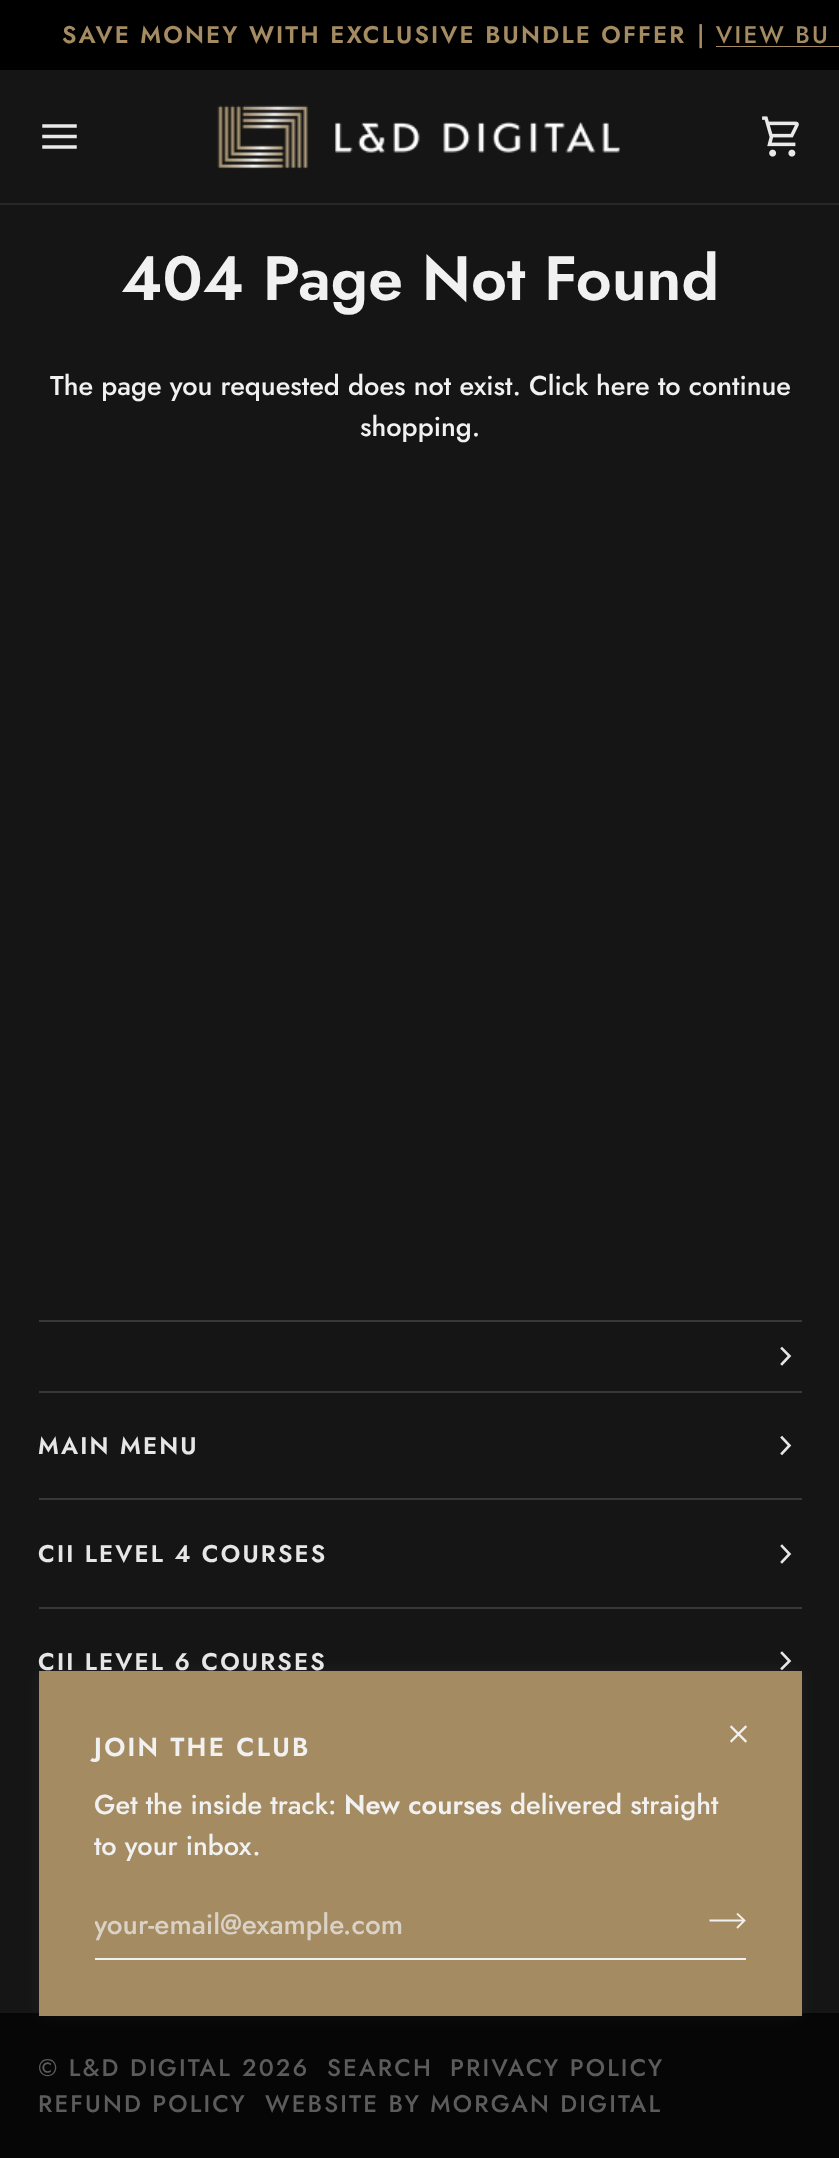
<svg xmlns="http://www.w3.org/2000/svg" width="839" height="2158">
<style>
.a{font:600 24.05px Jost;letter-spacing:2.15px;fill:#a48b62}
.b{font:500 24.05px Jost;letter-spacing:2.15px;fill:#a48b62}
.c{font:600 62.5px Jost;fill:#f1f1f1}
.d{font:500 27.2px Jost;fill:#f1f1f1}
.e{font:600 24.05px Jost;letter-spacing:2.15px;fill:#e6e6e6}
.f{font:600 26px Jost;letter-spacing:2.3px;fill:#f1f1f1}
.g{font:600 27.2px Jost;fill:#f1f1f1}
.h{font:500 28px Jost;fill:#dad2c6}
.i{font:500 24.05px Jost;letter-spacing:2.15px;fill:#5c5c5c}
</style>
<defs>
<clipPath id="clip1"><path d="M95 1904h575v40H95z"/></clipPath>
</defs>
<rect width="100%" height="100%" fill="#151515"/>
<path fill="#000" d="M0 0h839v70H0z"/>
<path fill="#a48b62" d="M716 46h123v1H716z"/>
<path fill="#282828" d="M0 203h839v2H0z"/>
<path fill="none" stroke="#e9e9e9" stroke-width="3.5" stroke-linecap="square" d="M75 126h-31m31 10.5h-31m31 10.5h-31"/>
<image href="1.png" x="217" y="105" width="404" height="64"/>
<image href="2.png" x="762" y="116" width="37" height="41"/>
<path fill="#383838" d="M39 1320h763v2H39z"/>
<path fill="#383838" d="M39 1391h763v2H39z"/>
<path fill="none" stroke="#e6e6e6" stroke-width="2.6" stroke-linecap="square" d="M782 1364l7.5-8l-7.5-7.5"/>
<path fill="#383838" d="M39 1498h763v2H39z"/>
<path fill="none" stroke="#e6e6e6" stroke-width="2.6" stroke-linecap="square" d="M782 1453.5l7.5-8l-7.5-8"/>
<path fill="#383838" d="M39 1607h763v2H39z"/>
<path fill="none" stroke="#e6e6e6" stroke-width="2.6" stroke-linecap="square" d="M782 1562l7.5-8l-7.5-8"/>
<path fill="none" stroke="#e6e6e6" stroke-width="2.6" stroke-linecap="square" d="M782 1668.5l7.5-7.5l-7.5-8"/>
<path fill="#060606" d="M0 2013h839v145H0z"/>
<path fill="#f1f1f10d" filter="blur(9px)" d="M39 1671h763v345H39z"/>
<path fill="#a48b62" d="M39 1671h763v345H39z"/>
<path fill="none" stroke="#f1f1f1" stroke-width="2.3" stroke-linecap="square" d="M745.5 1727l-14 14m0-14l14 14"/>
<path fill="#f1f1f1" d="M95 1958h651v2H95z"/>
<path fill="none" stroke="#f1f1f1" stroke-width="1.8" d="M737 1913.5l7.5 7l-7.5 7.5m-27.5-7.5h35"/>
<text class="a" x="62" y="43">SAVE MONEY WITH EXCLUSIVE BUNDLE OFFER</text>
<text class="b" x="697" y="43">| VIEW BU</text>
<text class="c" x="121" y="300">404 Page Not Found</text>
<text class="d" x="50" y="395">The page you requested does not exist. Click</text>
<text class="d" x="596" y="395">here to continue</text>
<text class="d" x="360" y="436">shopping.</text>
<text class="e" x="38" y="1454">MAIN MENU</text>
<text class="e" x="38" y="1562">CII LEVEL 4 COURSES</text>
<text class="e" x="38" y="1670">CII LEVEL 6 COURSES</text>
<text class="f" x="94" y="1756">JOIN THE CLUB</text>
<text class="d" x="94" y="1814">Get the inside track:</text>
<text class="g" x="344" y="1814">New courses</text>
<text class="d" x="510" y="1814">delivered straight</text>
<text class="d" x="94" y="1855">to your inbox.</text>
<g clip-path="url(#clip1)">
<text class="h" x="94" y="1934">your-email@example.com</text>
</g>
<text class="i" x="38" y="2076">© L&amp;D DIGITAL</text>
<text class="i" x="242" y="2076">2026</text>
<text class="i" x="327" y="2076">SEARCH</text>
<text class="i" x="450" y="2076">PRIVACY POLICY</text>
<text class="i" x="38" y="2112">REFUND POLICY</text>
<text class="i" x="265" y="2112">WEBSITE BY MORGAN DIGITAL</text>
</svg>
